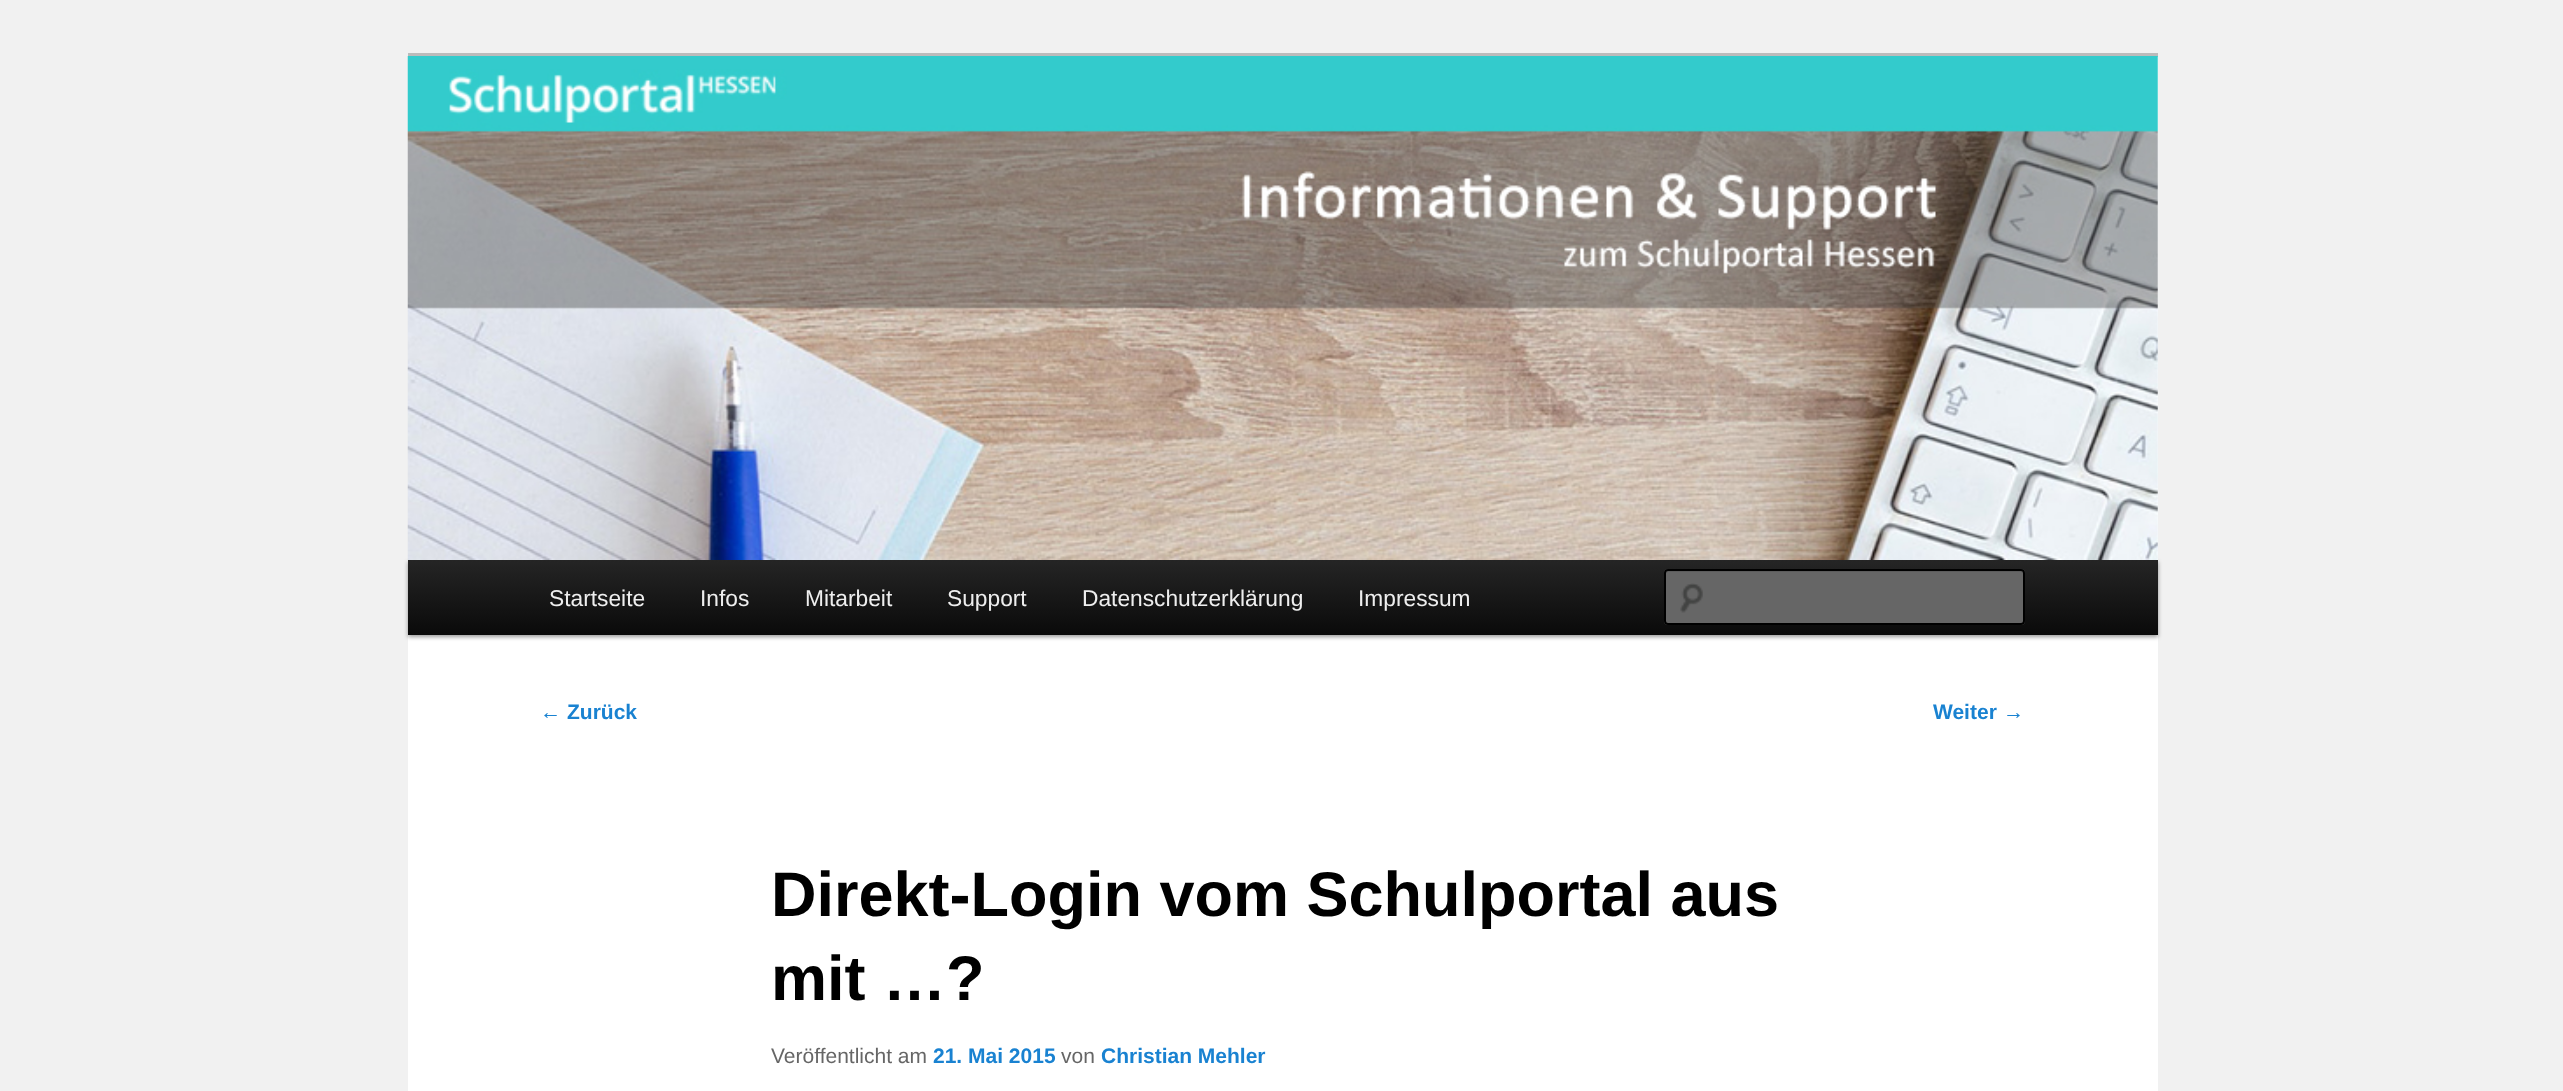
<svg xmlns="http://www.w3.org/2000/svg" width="2563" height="1091">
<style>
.a{font:22.75px Liberation Sans;fill:#eee}
.b{font:21px Liberation Sans;fill:#1982d1}
.c{font:bold 21px Liberation Sans;fill:#1982d1}
.d{font:bold 63px Liberation Sans;fill:#000}
.e{font:21px Liberation Sans;fill:#666}
</style>
<defs>
<linearGradient id="g1" gradientUnits="userSpaceOnUse" x1="1283" y1="560" x2="1283" y2="635"><stop offset="0" stop-color="#252525"/><stop offset="1" stop-color="#0a0a0a"/></linearGradient>
</defs>
<rect width="100%" height="100%" fill="#f1f1f1"/>
<path fill="#fff" d="M408 57h1750v1034H408z"/>
<path fill="#bbb" d="M408 53h1750v4H408z"/>
<path fill="#00000066" filter="blur(2px)" d="M408 562h1750v75H408z"/>
<image href="1.png" x="407" y="56" width="1751" height="504"/>
<path fill="url(#g1)" d="M408 560h1750v75H408z"/>
<rect fill="#666" x="1664" y="569" width="361" height="56" rx="4"/>
<image href="2.png" x="1680" y="583" width="23" height="30"/>
<path fill="#5c5c5c" d="M1668 572h353c1 0 2 1 2 2c0-1 0-3-2-3h-353c-2 0-2 2-2 3c0-1 1-2 2-2z"/>
<rect fill="none" stroke="#000" stroke-width="2" x="1665" y="570" width="359" height="54" rx="3"/>
<text class="a" x="549" y="606">Startseite</text>
<text class="a" x="700" y="606">Infos</text>
<text class="a" x="805" y="606">Mitarbeit</text>
<text class="a" x="947" y="606">Support</text>
<text class="a" x="1082" y="606">Datenschutzerklärung</text>
<text class="a" x="1358" y="606">Impressum</text>
<text class="b" x="540" y="719">←</text>
<text class="c" x="567" y="719">Zurück</text>
<text class="c" x="1933" y="719">Weiter</text>
<text class="b" x="2003" y="719">→</text>
<text class="d" x="771" y="916">Direkt-Login vom Schulportal aus</text>
<text class="d" x="771" y="1000">mit …?</text>
<text class="e" x="771" y="1063">Veröffentlicht am</text>
<text class="c" x="933" y="1063">21. Mai 2015</text>
<text class="e" x="1061" y="1063">von</text>
<text class="c" x="1101" y="1063">Christian Mehler</text>
</svg>
